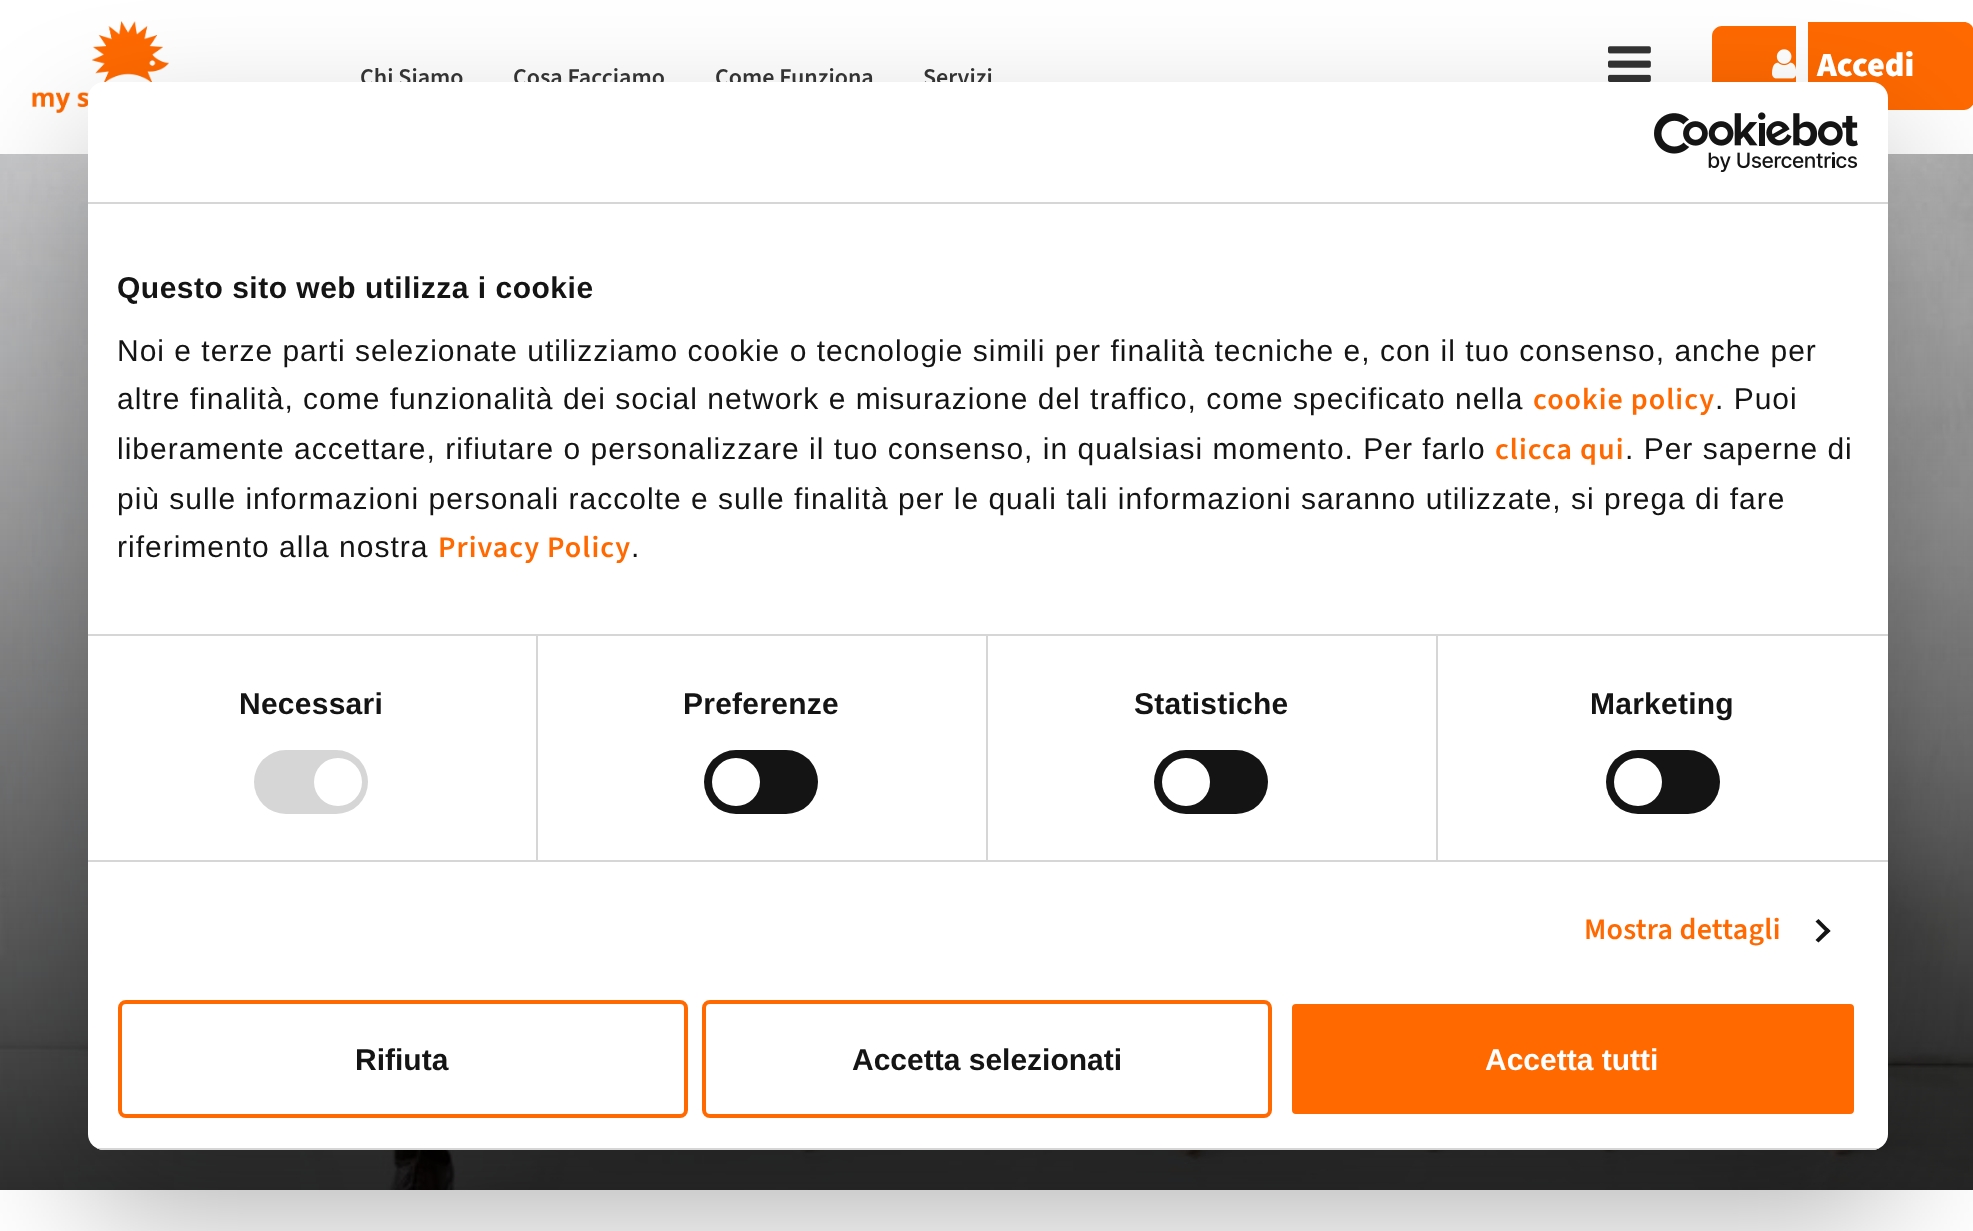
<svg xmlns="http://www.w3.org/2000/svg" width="1973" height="1231">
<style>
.a{font:600 24px 'Source Sans 3';fill:#333}
.b{font:900 34px 'Source Sans 3';fill:#fff}
.c{font:bold 30px Liberation Sans;letter-spacing:0.5px;fill:#141414}
.d{font:30px Liberation Sans;letter-spacing:1px;fill:#141414}
.e{font:600 30px 'Source Sans 3';letter-spacing:1px;fill:#ff6900}
.f{font:bold 30px Liberation Sans;letter-spacing:0.25px;fill:#141414}
.g{font:600 30px 'Source Sans 3';letter-spacing:0.25px;fill:#ff6900}
.h{font:bold 30px Liberation Sans;fill:#141414}
.i{font:bold 30px Liberation Sans;fill:#fff}
</style>
<defs>
<clipPath id="clip1"><rect x="88" y="82" width="1800" height="1068" rx="16"/></clipPath>
</defs>
<rect width="100%" height="100%" fill="#fff"/>
<image href="1.png" x="31" y="21" width="138" height="92"/>
<image href="2.png" x="1608" y="46" width="43" height="36"/>
<path fill="#ff6900" d="M1722 26h74v74h-74c-5.5 0-10-4.5-10-10v-54c0-5.5 4.5-10 10-10z"/>
<path fill="#ff6900" d="M1808 22h8v60H1808z"/>
<path fill="#ff6900" d="M1816 22h148c5.5 0 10 4.5 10 10v68c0 5.5-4.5 10-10 10h-148z"/>
<image href="3.png" x="1772" y="49" width="24" height="30"/>
<image href="4.png" x="0" y="154" width="1973" height="1036"/>
<rect fill="#0000004d" filter="blur(68px)" x="88" y="146" width="1800" height="1068" rx="16"/>
<text class="a" x="360" y="85">Chi Siamo</text>
<text class="a" x="513" y="85">Cosa Facciamo</text>
<text class="a" x="715" y="85">Come Funziona</text>
<text class="a" x="923" y="85">Servizi</text>
<text class="b" x="1817" y="76">Accedi</text>
<rect fill="#fff" x="88" y="82" width="1800" height="1068" rx="16"/>
<path fill="#d6d6d6" d="M88 202h1800v2H88z"/>
<image href="5.png" x="1654" y="112" width="204" height="60"/>
<path fill="#d6d6d6" d="M88 634h1800v2H88z"/>
<text class="c" x="117" y="298">Questo sito web utilizza i cookie</text>
<text class="d" x="117" y="361">Noi e terze parti selezionate utilizziamo cookie o tecnologie simili per finalità tecniche e, con il tuo consenso, anche per</text>
<text class="d" x="117" y="409">altre finalità, come funzionalità dei social network e misurazione del traffico, come specificato nella</text>
<text class="e" x="1533" y="409">cookie policy</text>
<text class="d" x="1715" y="409">. Puoi</text>
<text class="d" x="117" y="459">liberamente accettare, rifiutare o personalizzare il tuo consenso, in qualsiasi momento. Per farlo</text>
<text class="e" x="1495" y="459">clicca qui</text>
<text class="d" x="1625" y="459">. Per saperne di</text>
<text class="d" x="117" y="509">più sulle informazioni personali raccolte e sulle finalità per le quali tali informazioni saranno utilizzate, si prega di fare</text>
<text class="d" x="117" y="557">riferimento alla nostra</text>
<text class="e" x="438" y="557">Privacy Policy</text>
<text class="d" x="631" y="557">.</text>
<path fill="#d6d6d6" d="M88 860h1800v2H88z"/>
<path fill="#d6d6d6" d="M536 636h2v224H536z"/>
<text class="f" x="239" y="714">Necessari</text>
<rect fill="#d6d6d6" x="254" y="750" width="114" height="64" rx="32"/>
<circle fill="#fff" cx="338" cy="782" r="24"/>
<path fill="#d6d6d6" d="M986 636h2v224H986z"/>
<text class="f" x="683" y="714">Preferenze</text>
<rect fill="#141414" x="704" y="750" width="114" height="64" rx="32"/>
<circle fill="#fff" cx="736" cy="782" r="24"/>
<path fill="#d6d6d6" d="M1436 636h2v224H1436z"/>
<text class="f" x="1134" y="714">Statistiche</text>
<rect fill="#141414" x="1154" y="750" width="114" height="64" rx="32"/>
<circle fill="#fff" cx="1186" cy="782" r="24"/>
<text class="f" x="1590" y="714">Marketing</text>
<rect fill="#141414" x="1606" y="750" width="114" height="64" rx="32"/>
<circle fill="#fff" cx="1638" cy="782" r="24"/>
<text class="g" x="1584" y="939">Mostra dettagli</text>
<path fill="#141414" d="M1818.5 919l12 12l-3 2.5l-12-12z"/>
<path fill="#141414" d="M1827.5 928l3 3l-12 11.5l-3-2.5z"/>
<g clip-path="url(#clip1)">
<path fill="#d6d6d6" d="M88 1148h1800v2H88z"/>
</g>
<rect fill="none" stroke="#ff6900" stroke-width="4" x="120" y="1002" width="566" height="114" rx="6"/>
<text class="h" x="355" y="1070">Rifiuta</text>
<rect fill="none" stroke="#ff6900" stroke-width="4" x="704" y="1002" width="566" height="114" rx="6"/>
<text class="h" x="852" y="1070">Accetta selezionati</text>
<rect fill="#ff6900" stroke="#fff" stroke-width="4" x="1290" y="1002" width="566" height="114" rx="6"/>
<text class="i" x="1485" y="1070">Accetta tutti</text>
</svg>
